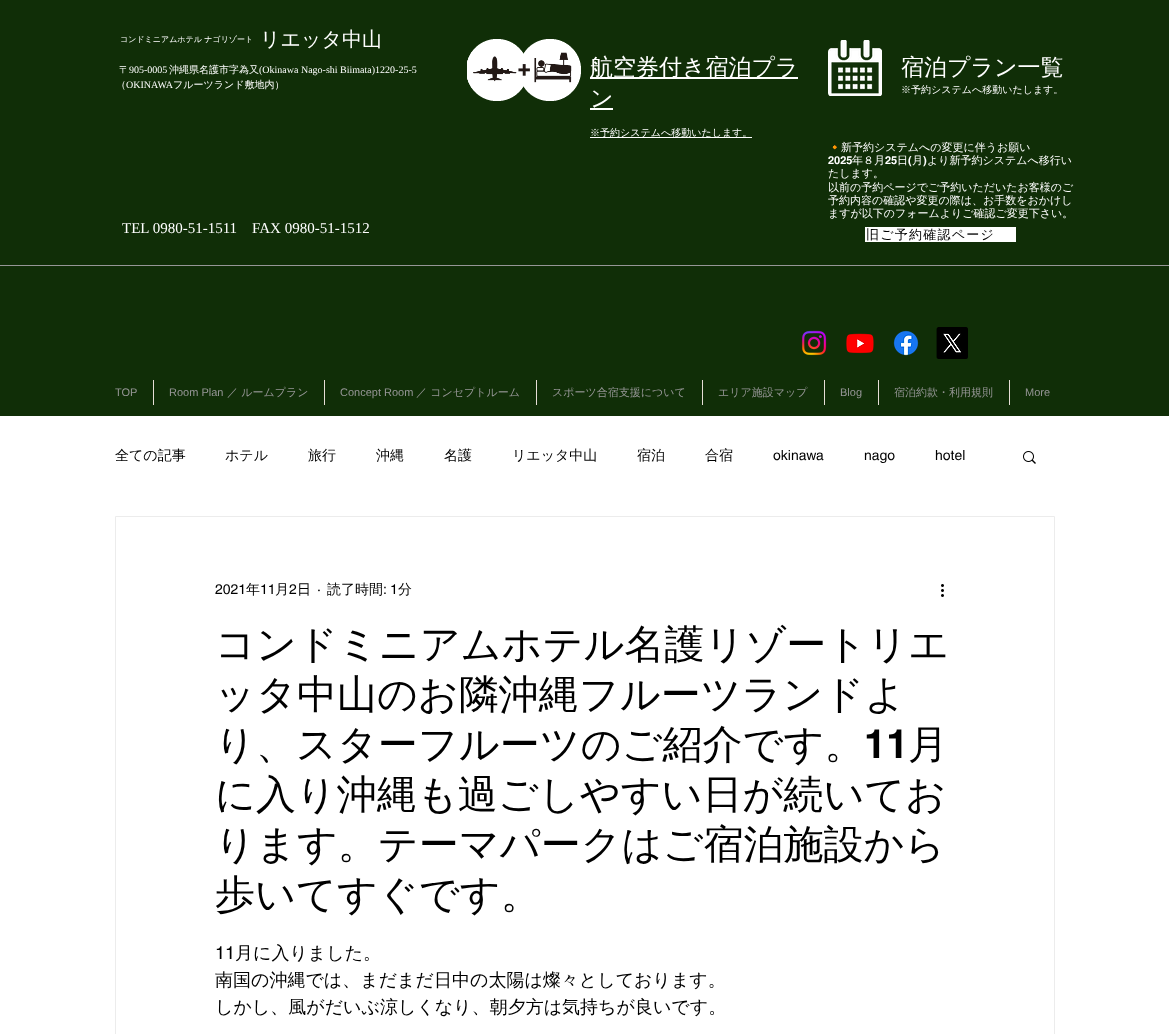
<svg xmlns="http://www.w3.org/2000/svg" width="1169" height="1034">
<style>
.a{font:500 8px WenQuanYi Zen Hei;fill:#fff}
.b{font:500 20px WenQuanYi Zen Hei;fill:#fff}
.c{font:500 10px WenQuanYi Zen Hei;fill:#fff}
.d{font:10px Liberation Serif;fill:#fff}
.e{font:500 23px WenQuanYi Zen Hei;fill:#fff}
.f{font:11px Noto Color Emoji;fill:#fff}
.g{font:500 11px WenQuanYi Zen Hei;fill:#fff}
.h{font:bold 11px helvetica;fill:#fff}
.i{font:15px Liberation Serif;fill:#fff}
.j{font:500 13px WenQuanYi Zen Hei;letter-spacing:1.25px;fill:#000}
.k{font:11px Liberation Sans;fill:#969696}
.l{font:500 11px WenQuanYi Zen Hei;fill:#969696}
.m{font:500 14px WenQuanYi Zen Hei;fill:#000}
.n{font:14px helvetica;fill:#000}
.o{font:500 40px WenQuanYi Zen Hei;fill:#000}
.p{font:bold 40px helvetica;fill:#000}
.q{font:18px helvetica;fill:#000}
.r{font:500 18px WenQuanYi Zen Hei;fill:#000}
</style>
<rect width="100%" height="100%" fill="#fff"/>
<path fill="#102e07" d="M0 0h1169v416H0z"/>
<image href="1.png" x="467" y="39" width="114" height="62"/>
<path fill="#fff" d="M590 77h208v2H590z"/>
<path fill="#fff" d="M590 108h23v2H590z"/>
<path fill="#fff" d="M590 137h162v1H590z"/>
<image href="2.png" x="828" y="40" width="54" height="56"/>
<path fill="#fff" d="M865 227h151v15H865z"/>
<path fill="#969696" d="M0 265h1169v1H0z"/>
<image href="3.png" x="801" y="330" width="26" height="26"/>
<image href="4.png" x="846" y="333" width="28" height="21"/>
<image href="5.png" x="893" y="330" width="26" height="26"/>
<image href="6.png" x="936" y="327" width="32" height="32"/>
<path fill="#e6ded6" d="M153 380h1v25H153z"/>
<path fill="#e6ded6" d="M324 380h1v25H324z"/>
<path fill="#e6ded6" d="M536 380h1v25H536z"/>
<path fill="#e6ded6" d="M702 380h1v25H702z"/>
<path fill="#e6ded6" d="M824 380h1v25H824z"/>
<path fill="#e6ded6" d="M878 380h1v25H878z"/>
<path fill="#e6ded6" d="M1009 380h1v25H1009z"/>
<image href="7.png" x="1023" y="451" width="13" height="13"/>
<path fill="none" stroke="#ececec" d="M115.5 516.5h939v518H115.5z"/>
<image href="8.png" x="941" y="584" width="3" height="13"/>
<text class="a" x="120" y="42">コンドミニアムホテル ナゴリゾート</text>
<text class="b" x="260" y="46">リエッタ中山</text>
<text class="c" x="119" y="73">〒</text>
<text class="d" x="129" y="73">905-0005</text>
<text class="c" x="169" y="73">沖縄県名護市字為又</text>
<text class="d" x="259" y="73">(Okinawa Nago-shi Biimata)1220-25-5</text>
<text class="c" x="116" y="88">（</text>
<text class="d" x="126" y="88">OKINAWA</text>
<text class="c" x="173" y="88">フルーツランド敷地内）</text>
<text class="e" x="590" y="75">航空券付き宿泊プラ</text>
<text class="e" x="590" y="106">ン</text>
<text class="c" x="590" y="136">※予約システムへ移動いたします。</text>
<text class="e" x="901" y="75">宿泊プラン一覧</text>
<text class="c" x="901" y="93">※予約システムへ移動いたします。</text>
<text class="f" x="828" y="151">🔸</text>
<text class="g" x="841" y="151">新予約システムへの変更に伴うお願い</text>
<text class="h" x="828" y="164">2025</text>
<text class="g" x="852" y="164">年８月</text>
<text class="h" x="885" y="164">25</text>
<text class="g" x="897" y="164">日</text>
<text class="h" x="908" y="164">(</text>
<text class="g" x="912" y="164">月</text>
<text class="h" x="923" y="164">)</text>
<text class="g" x="927" y="164">より新予約システムへ移行い</text>
<text class="g" x="828" y="177">たします。</text>
<text class="g" x="828" y="191">以前の予約ページでご予約いただいたお客様のご</text>
<text class="g" x="828" y="204">予約内容の確認や変更の際は、お手数をおかけし</text>
<text class="g" x="828" y="217">ますが以下のフォームよりご確認ご変更下さい。</text>
<text class="i" x="122" y="233">TEL 0980-51-1511</text>
<text class="i" x="252" y="233">FAX 0980-51-1512</text>
<text class="j" x="866" y="239">旧ご予約確認ページ</text>
<text class="k" x="115" y="396">TOP</text>
<text class="k" x="169" y="396">Room Plan</text>
<text class="l" x="227" y="396">／ ルームプラン</text>
<text class="k" x="340" y="396">Concept Room</text>
<text class="l" x="416" y="396">／ コンセプトルーム</text>
<text class="l" x="552" y="396">スポーツ合宿支援について</text>
<text class="l" x="718" y="396">エリア施設マップ</text>
<text class="k" x="840" y="396">Blog</text>
<text class="l" x="894" y="396">宿泊約款・利用規則</text>
<text class="k" x="1025" y="396">More</text>
<text class="m" x="115" y="460">全ての記事</text>
<text class="m" x="225" y="460">ホテル</text>
<text class="m" x="308" y="460">旅行</text>
<text class="m" x="376" y="460">沖縄</text>
<text class="m" x="444" y="460">名護</text>
<text class="m" x="512" y="460">リエッタ中山</text>
<text class="m" x="637" y="460">宿泊</text>
<text class="m" x="705" y="460">合宿</text>
<text class="n" x="773" y="460">okinawa</text>
<text class="n" x="864" y="460">nago</text>
<text class="n" x="935" y="460">hotel</text>
<text class="n" x="215" y="594">2021</text>
<text class="m" x="246" y="594">年</text>
<text class="n" x="260" y="594">11</text>
<text class="m" x="275" y="594">月</text>
<text class="n" x="289" y="594">2</text>
<text class="m" x="297" y="594">日</text>
<text class="n" x="317" y="594">·</text>
<text class="m" x="327" y="594">読了時間</text>
<text class="n" x="383" y="594">: 1</text>
<text class="m" x="398" y="594">分</text>
<text class="o" x="215" y="658">コンドミニアムホテル名護リゾートリエ</text>
<text class="o" x="215" y="708">ッタ中山のお隣沖縄フルーツランドよ</text>
<text class="o" x="215" y="758">り、スターフルーツのご紹介です。</text>
<text class="p" x="864" y="758">11</text>
<text class="o" x="908" y="758">月</text>
<text class="o" x="215" y="808">に入り沖縄も過ごしやすい日が続いてお</text>
<text class="o" x="215" y="858">ります。テーマパークはご宿泊施設から</text>
<text class="o" x="215" y="908">歩いてすぐです。</text>
<text class="q" x="215" y="959">11</text>
<text class="r" x="235" y="959">月に入りました。</text>
<text class="r" x="215" y="986">南国の沖縄では、まだまだ日中の太陽は燦々としております。</text>
<text class="r" x="215" y="1013">しかし、風がだいぶ涼しくなり、朝夕方は気持ちが良いです。</text>
</svg>
